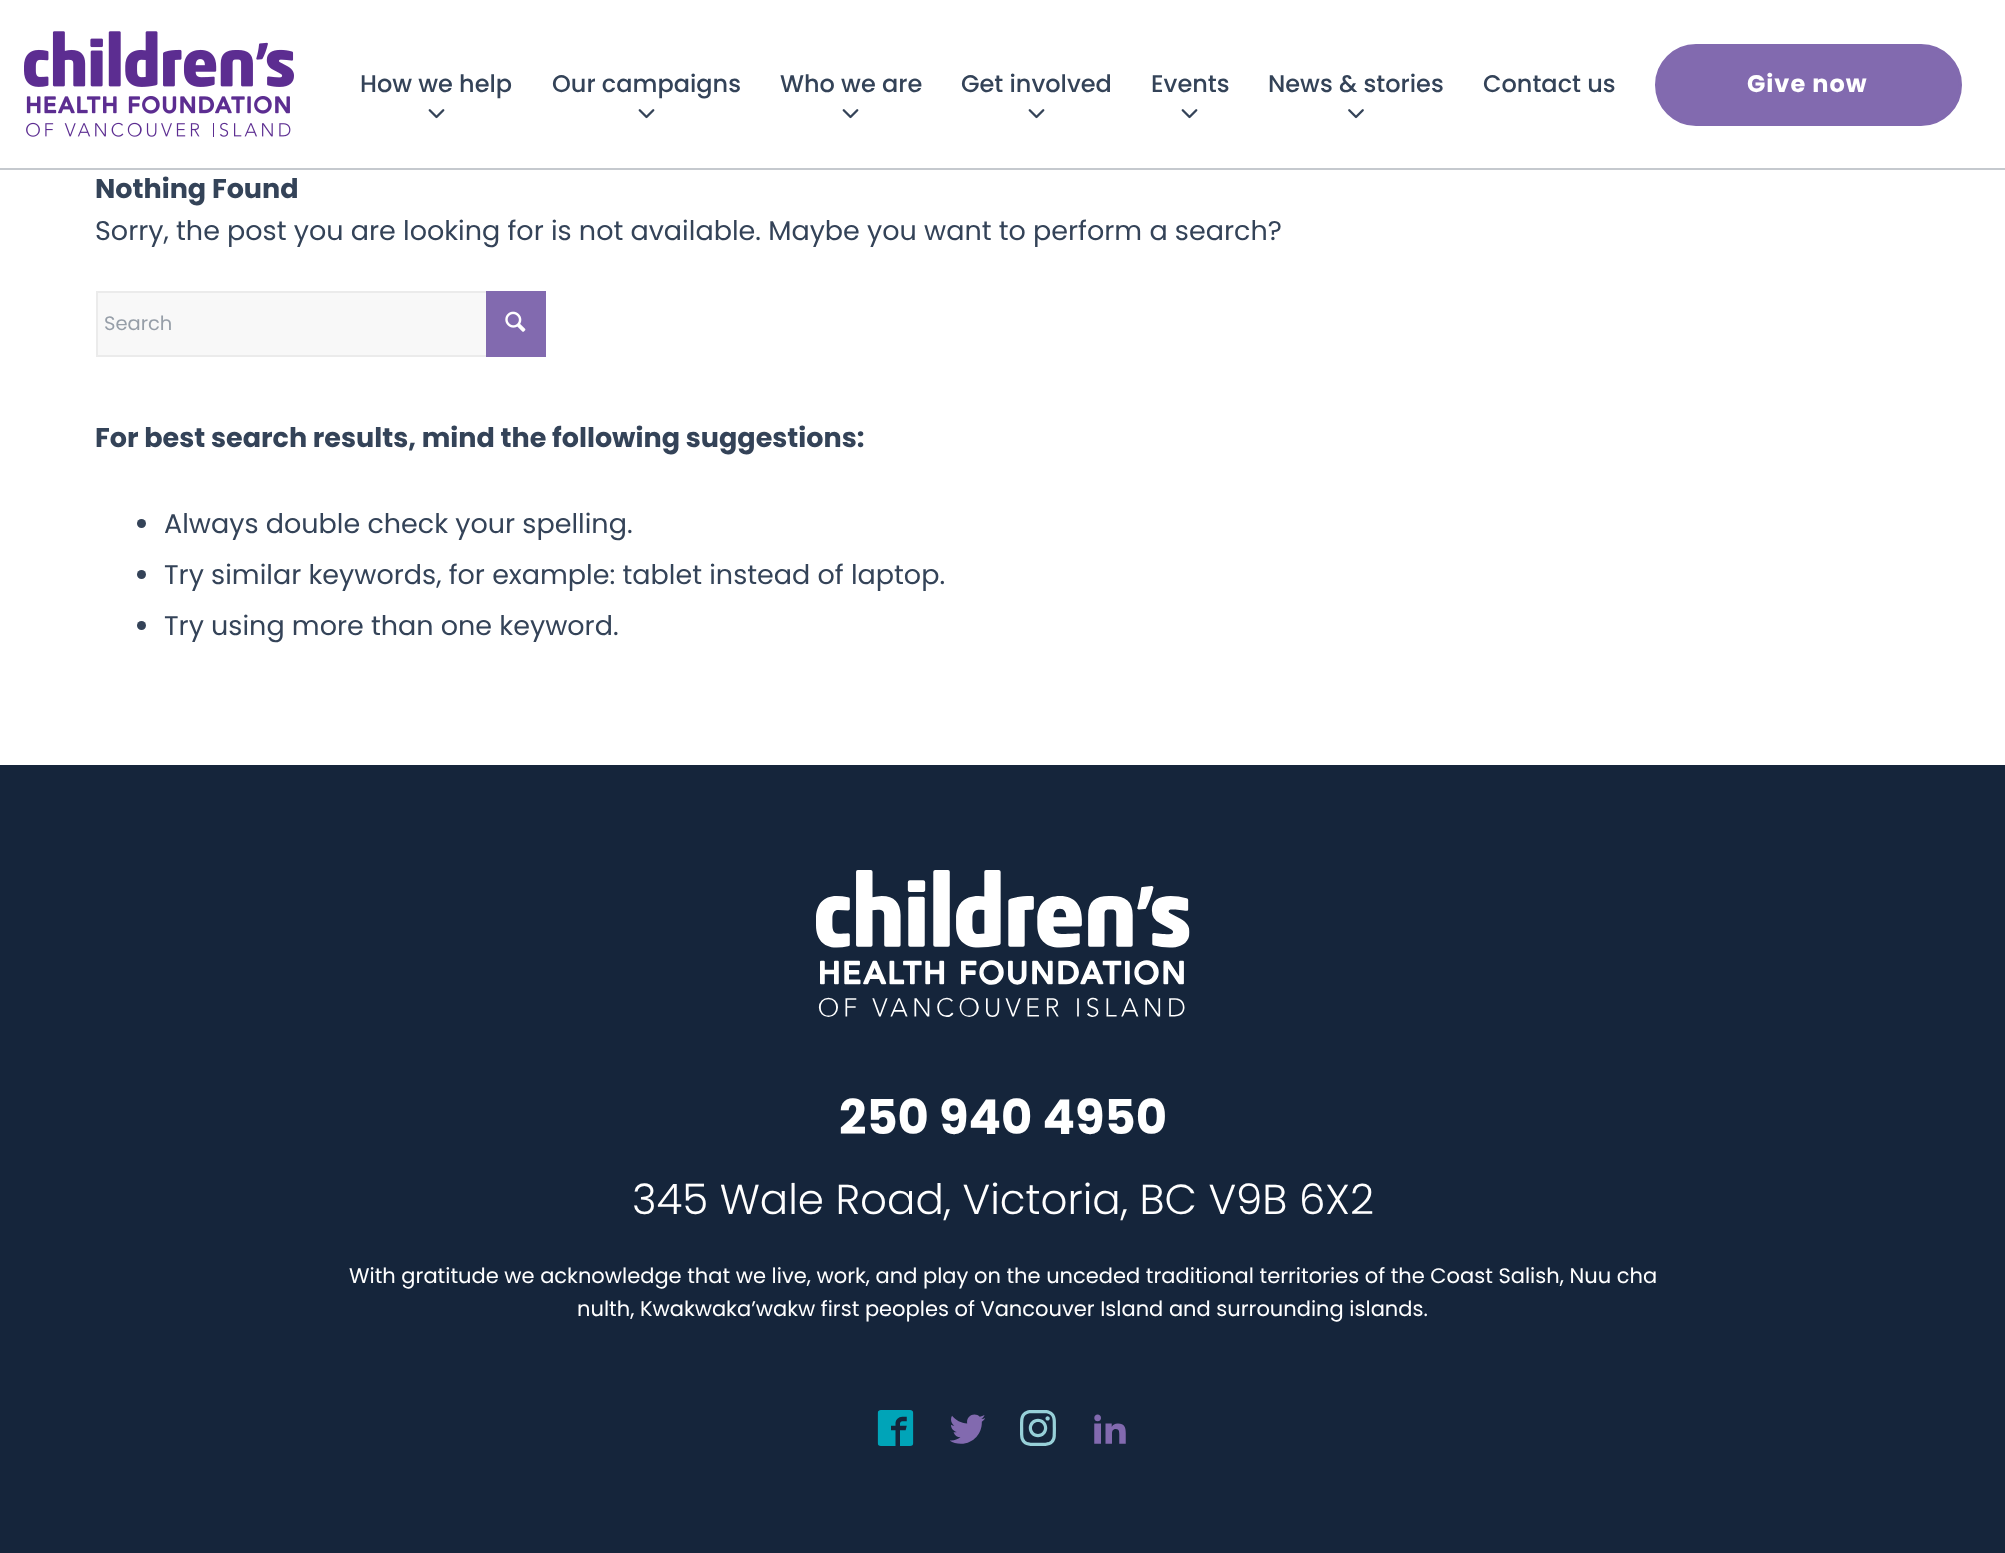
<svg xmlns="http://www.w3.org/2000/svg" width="2005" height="1553">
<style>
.a{font:500 24px Poppins;fill:#344358}
.b{font:bold 24px Poppins;letter-spacing:1px;fill:#fff}
.c{font:bold 27px Poppins;fill:#344358}
.d{font:27px Poppins;fill:#344358}
.e{font:19.5px Poppins;fill:#969ea8}
.f{font:bold 48px Poppins;fill:#fff}
.g{font:300 42px Poppins;fill:#fff}
.h{font:21px Poppins;fill:#fff}
</style>
<rect width="100%" height="100%" fill="#fff"/>
<path fill="#c5c9ce" d="M0 168h2005v2H0z"/>
<image href="1.png" x="24" y="31" width="270" height="106"/>
<image href="2.png" x="428" y="109" width="17" height="10"/>
<image href="2.png" x="638" y="109" width="17" height="10"/>
<image href="2.png" x="842" y="109" width="17" height="10"/>
<image href="2.png" x="1028" y="109" width="17" height="10"/>
<image href="2.png" x="1181" y="109" width="17" height="10"/>
<image href="3.png" x="1348" y="109" width="16" height="10"/>
<rect fill="#826aaf" stroke="#826aaf" stroke-width="3" x="1656.5" y="45.5" width="304" height="79" rx="39.5"/>
<path fill="#f8f8f8" d="M98 293h388v62H98z"/>
<path fill="none" stroke="#ebebeb" stroke-width="2" d="M97 292h448v64H97z"/>
<path fill="#826aaf" d="M486 291h60v66H486z"/>
<image href="4.png" x="505" y="311" width="21" height="21"/>
<circle fill="#344358" cx="141.5" cy="523.5" r="4.5"/>
<circle fill="#344358" cx="141.5" cy="574.5" r="4.5"/>
<circle fill="#344358" cx="141.5" cy="625.5" r="4.5"/>
<path fill="#15253b" d="M0 765h2005v788H0z"/>
<image href="5.png" x="816" y="870" width="374" height="147"/>
<image href="6.png" x="877" y="1410" width="37" height="36"/>
<image href="7.png" x="950" y="1414" width="35" height="30"/>
<image href="8.png" x="1020" y="1410" width="36" height="36"/>
<image href="9.png" x="1094" y="1414" width="32" height="30"/>
<text class="a" x="360" y="92">How we help</text>
<text class="a" x="552" y="92">Our campaigns</text>
<text class="a" x="780" y="92">Who we are</text>
<text class="a" x="961" y="92">Get involved</text>
<text class="a" x="1151" y="92">Events</text>
<text class="a" x="1268" y="92">News &amp; stories</text>
<text class="a" x="1483" y="92">Contact us</text>
<text class="b" x="1747" y="92">Give now</text>
<text class="c" x="95" y="198">Nothing Found</text>
<text class="d" x="95" y="240">Sorry, the post you are looking for is not available. Maybe you want to perform a search?</text>
<text class="e" x="104" y="330">Search</text>
<text class="c" x="95" y="447">For best search results, mind the following suggestions:</text>
<text class="d" x="164" y="533">Always double check your spelling.</text>
<text class="d" x="164" y="584">Try similar keywords, for example: tablet instead of laptop.</text>
<text class="d" x="164" y="635">Try using more than one keyword.</text>
<text class="f" x="839" y="1134">250 940 4950</text>
<text class="g" x="632" y="1214">345 Wale Road, Victoria, BC V9B 6X2</text>
<text class="h" x="349" y="1283">With gratitude we acknowledge that we live, work, and play on the unceded traditional territories of the Coast Salish, Nuu cha</text>
<text class="h" x="577" y="1316">nulth, Kwakwaka’wakw first peoples of Vancouver Island and surrounding islands.</text>
</svg>
